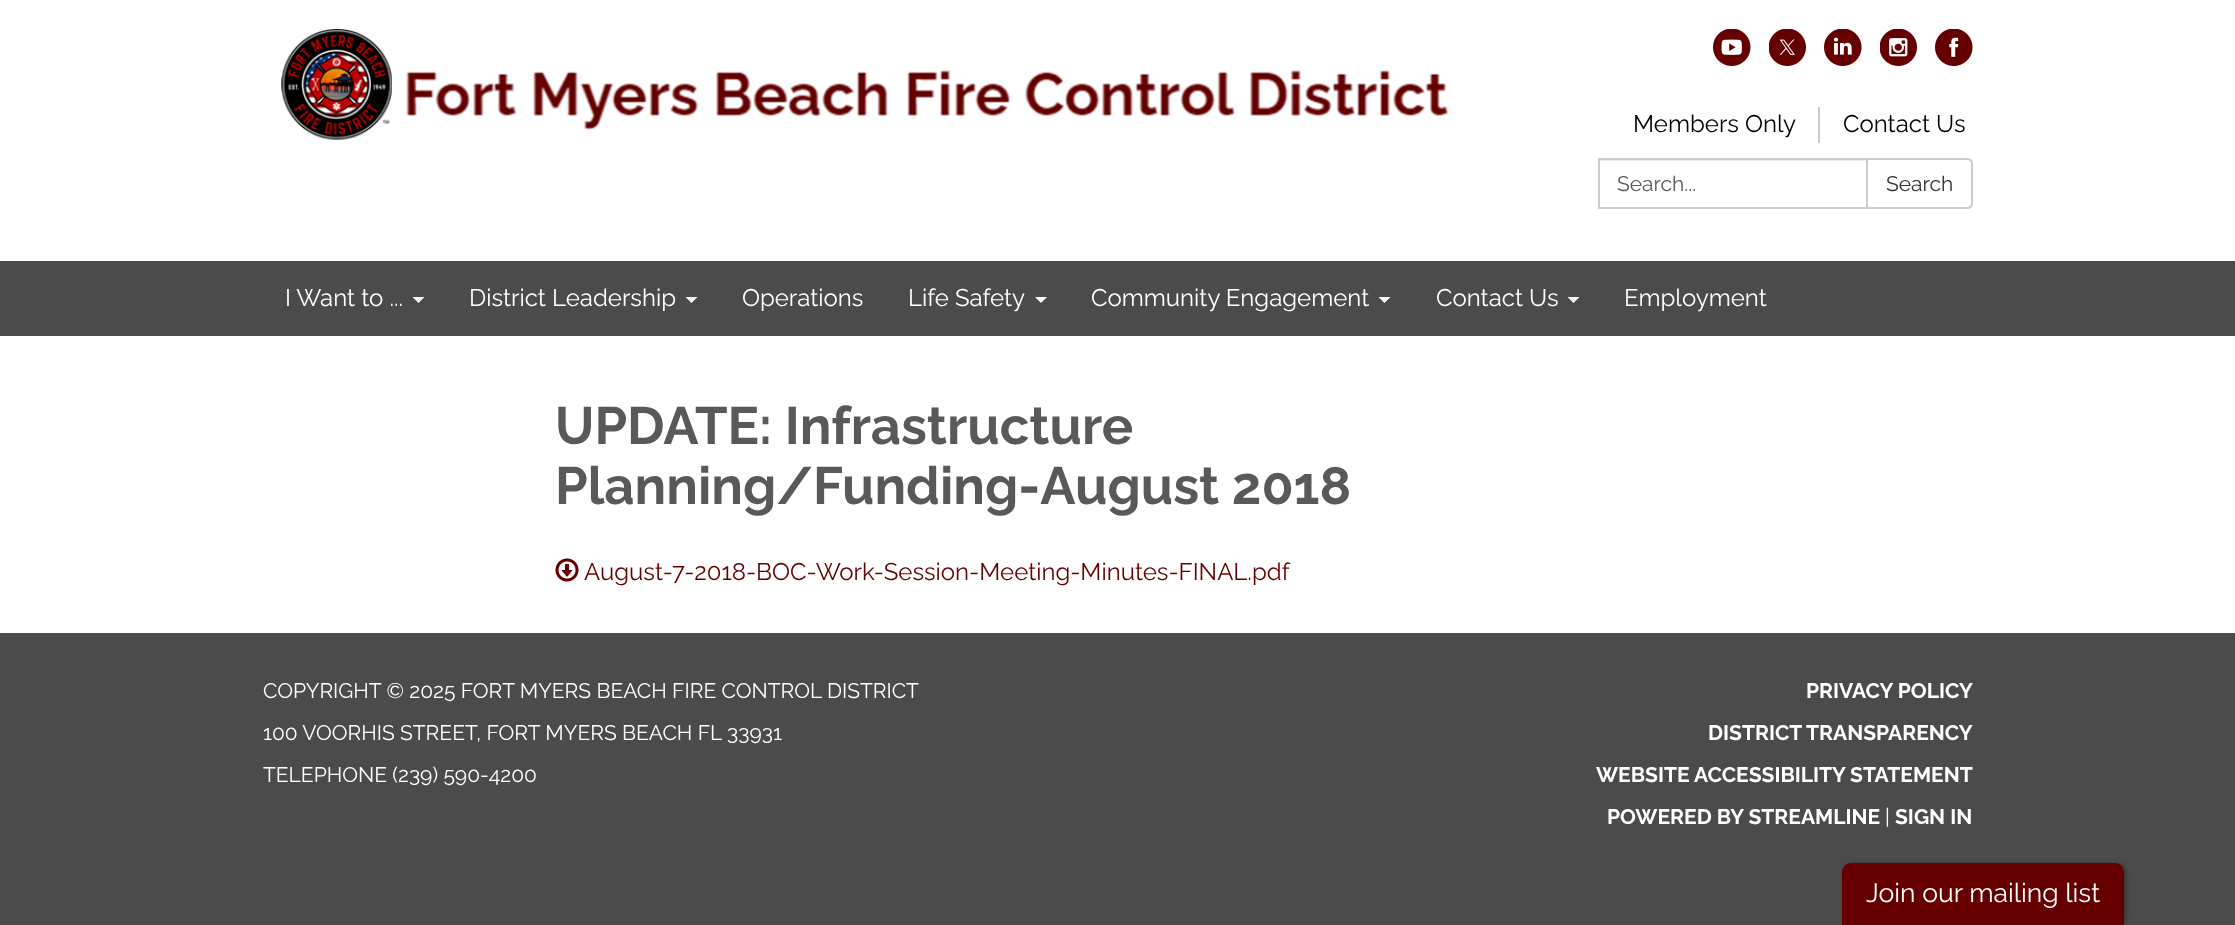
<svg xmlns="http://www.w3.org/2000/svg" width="2235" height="925">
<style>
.a{font:24px Raleway;fill:#000}
.b{font:21px Raleway;fill:#58595b}
.c{font:21px Raleway;fill:#333}
.d{font:24px Raleway;fill:#fff}
.e{font:bold 52.5px Raleway;fill:#58595b}
.f{font:24px Raleway;fill:#600}
.g{font:21px Raleway;fill:#fff}
.h{font:bold 21px Raleway;fill:#fff}
.i{font:26.5px Raleway;fill:#fff}
</style>
<rect width="100%" height="100%" fill="#4b4b4b"/>
<path fill="#fff" d="M0 0h2235v261H0z"/>
<image href="1.png" x="281" y="29" width="1168" height="111"/>
<image href="2.png" x="1713" y="29" width="38" height="37"/>
<image href="3.png" x="1769" y="29" width="37" height="37"/>
<image href="4.png" x="1824" y="29" width="38" height="37"/>
<image href="5.png" x="1880" y="29" width="37" height="37"/>
<image href="6.png" x="1935" y="29" width="38" height="37"/>
<path fill="#c8c9cb" d="M1818 107h2v36H1818z"/>
<path fill="#ececec" d="M1599 160h267v1H1599z"/>
<path fill="none" stroke="#ccc" stroke-width="2" d="M1599 159h268v49H1599z"/>
<path fill="#fff" stroke="#ccc" stroke-width="2" d="M1867 159h100c3 0 5 2 5 5v39c0 3-2 5-5 5h-100z"/>
<path fill="#fff" d="M412.5 297h12l-6 6z"/>
<path fill="#fff" d="M685.5 297h12l-6 6z"/>
<path fill="#fff" d="M1035 297h12l-6 6z"/>
<path fill="#fff" d="M1378.5 297h12l-6 6z"/>
<path fill="#fff" d="M1567.5 297h12l-6 6z"/>
<path fill="#fff" d="M0 336h2235v297H0z"/>
<image href="7.png" x="555" y="558" width="24" height="24"/>
<rect fill="#0000004d" filter="blur(2px)" x="1844" y="864" width="282" height="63" rx="9"/>
<path fill="#600" d="M1851 863h264c5 0 9 4 9 9v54h-282v-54c0-5 4-9 9-9z"/>
<text class="a" x="1633" y="132">Members Only</text>
<text class="a" x="1843" y="132">Contact Us</text>
<text class="b" x="1617" y="191">Search...</text>
<text class="c" x="1886" y="191">Search</text>
<text class="d" x="285" y="306">I Want to ...</text>
<text class="d" x="469" y="306">District Leadership</text>
<text class="d" x="742" y="306">Operations</text>
<text class="d" x="908" y="306">Life Safety</text>
<text class="d" x="1091" y="306">Community Engagement</text>
<text class="d" x="1436" y="306">Contact Us</text>
<text class="d" x="1624" y="306">Employment</text>
<text class="e" x="555" y="444">UPDATE: Infrastructure</text>
<text class="e" x="555" y="504">Planning/Funding-August 2018</text>
<text class="f" x="584" y="580">August-7-2018-BOC-Work-Session-Meeting-Minutes-FINAL.pdf</text>
<text class="g" x="263" y="698">COPYRIGHT © 2025 FORT MYERS BEACH FIRE CONTROL DISTRICT</text>
<text class="g" x="263" y="740">100 VOORHIS STREET, FORT MYERS BEACH FL 33931</text>
<text class="g" x="263" y="782">TELEPHONE (239) 590-4200</text>
<text class="h" x="1806" y="698">PRIVACY POLICY</text>
<text class="h" x="1708" y="740">DISTRICT TRANSPARENCY</text>
<text class="h" x="1596" y="782">WEBSITE ACCESSIBILITY STATEMENT</text>
<text class="h" x="1607" y="824">POWERED BY STREAMLINE</text>
<text class="g" x="1885" y="824">|</text>
<text class="h" x="1895" y="824">SIGN IN</text>
<text class="i" x="1866" y="902">Join our mailing list</text>
</svg>
